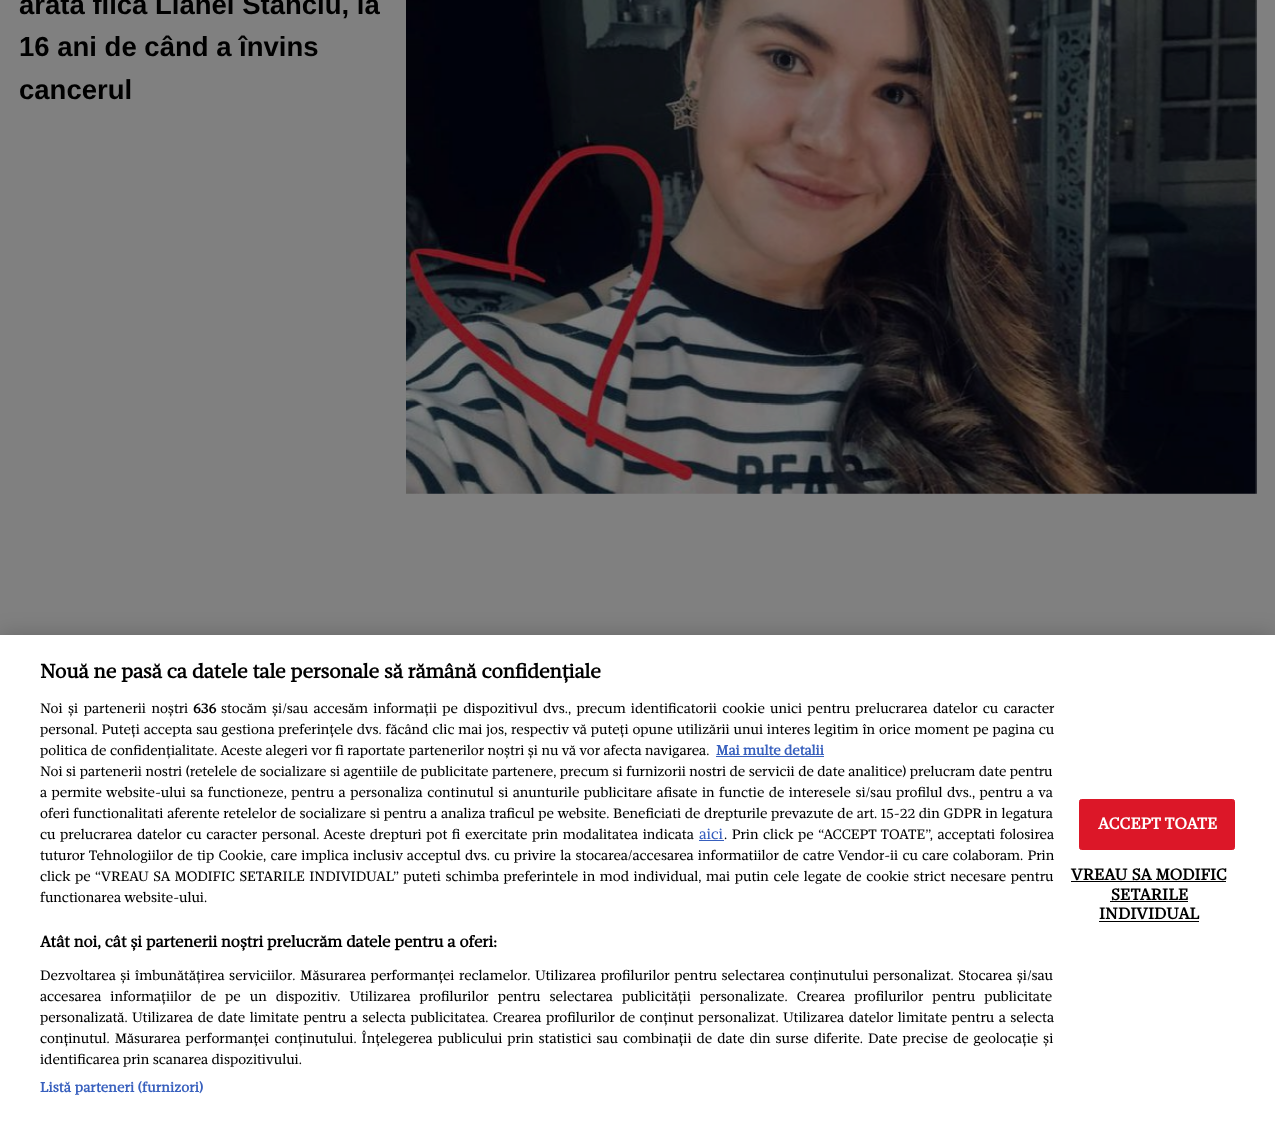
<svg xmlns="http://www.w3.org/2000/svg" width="1275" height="1122">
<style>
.a{font:bold 27.5px Liberation Sans;fill:#000}
.b{font:bold 20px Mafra;fill:#000}
.c{font:14px Mafra;fill:#000}
.d{font:bold 14px Mafra;fill:#000}
.e{font:bold 14px Mafra;fill:#3860be}
.f{font:15px Mafra;fill:#3860be}
.g{font:bold 16px Mafra;fill:#000}
.h{font:bold 14px Mafra;letter-spacing:0.15px;fill:#3860be}
.i{font:bold 16.25px Mafra;letter-spacing:0.2px;fill:#fff}
.j{font:bold 16.25px Mafra;letter-spacing:0.2px;fill:#000}
</style>
<rect width="100%" height="100%" fill="#808080"/>
<image href="1.png" x="406" y="0" width="851" height="494"/>
<path fill="#00000033" filter="blur(11px)" d="M0 635h1275v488H0z"/>
<path fill="#fff" d="M0 635h1275v487H0z"/>
<path fill="#3860be" d="M716 756h108v1H716z"/>
<path fill="#3860be" d="M699 840h25v1H699z"/>
<rect fill="#dc1728" stroke="#dc1728" x="1079.5" y="799.5" width="155" height="50" rx="2"/>
<path fill="#000" d="M1071 881h155v1H1071z"/>
<path fill="#000" d="M1110 901h78v1H1110z"/>
<path fill="#000" d="M1099 921h100v1H1099z"/>
<text class="a" x="19" y="14">arată fiica Lianei Stanciu, la</text>
<text class="a" x="19" y="56">16 ani de când a învins</text>
<text class="a" x="19" y="99">cancerul</text>
<text class="b" x="40" y="678">Nouă ne pasă ca datele tale personale să rămână confidențiale</text>
<text class="c" x="40" y="713" word-spacing="2">Noi și partenerii noștri</text>
<text class="d" x="193" y="713">636</text>
<text class="c" x="221" y="713" word-spacing="1.75">stocăm și/sau accesăm informații pe dispozitivul dvs., precum identificatorii cookie unici pentru prelucrarea datelor cu caracter</text>
<text class="c" x="40" y="734" word-spacing="0.4">personal. Puteți accepta sau gestiona preferințele dvs. făcând clic mai jos, respectiv vă puteți opune utilizării unui interes legitim în orice moment pe pagina cu</text>
<text class="c" x="40" y="755">politica de confidențialitate. Aceste alegeri vor fi raportate partenerilor noștri și nu vă vor afecta navigarea.</text>
<text class="e" x="716" y="755">Mai multe detalii</text>
<text class="c" x="40" y="776">Noi si partenerii nostri (retelele de socializare si agentiile de publicitate partenere, precum si furnizorii nostri de servicii de date analitice) prelucram date pentru</text>
<text class="c" x="40" y="797" word-spacing="1">a permite website-ului sa functioneze, pentru a personaliza continutul si anunturile publicitare afisate in functie de interesele si/sau profilul dvs., pentru a va</text>
<text class="c" x="40" y="818" word-spacing="0.2">oferi functionalitati aferente retelelor de socializare si pentru a analiza traficul pe website. Beneficiati de drepturile prevazute de art. 15-22 din GDPR in legatura</text>
<text class="c" x="40" y="839" word-spacing="1.1">cu prelucrarea datelor cu caracter personal. Aceste drepturi pot fi exercitate prin modalitatea indicata</text>
<text class="f" x="699" y="839">aici</text>
<text class="c" x="724" y="839" word-spacing="1.1">. Prin click pe “ACCEPT TOATE”, acceptati folosirea</text>
<text class="c" x="40" y="860" word-spacing="0.7">tuturor Tehnologiilor de tip Cookie, care implica inclusiv acceptul dvs. cu privire la stocarea/accesarea informatiilor de catre Vendor-ii cu care colaboram. Prin</text>
<text class="c" x="40" y="881" word-spacing="1.1">click pe “VREAU SA MODIFIC SETARILE INDIVIDUAL” puteti schimba preferintele in mod individual, mai putin cele legate de cookie strict necesare pentru</text>
<text class="c" x="40" y="902">functionarea website-ului.</text>
<text class="g" x="40" y="947">Atât noi, cât și partenerii noștri prelucrăm datele pentru a oferi:</text>
<text class="c" x="40" y="980" word-spacing="1.1">Dezvoltarea și îmbunătățirea serviciilor. Măsurarea performanței reclamelor. Utilizarea profilurilor pentru selectarea conținutului personalizat. Stocarea și/sau</text>
<text class="c" x="40" y="1001" word-spacing="5.6">accesarea informațiilor de pe un dispozitiv. Utilizarea profilurilor pentru selectarea publicității personalizate. Crearea profilurilor pentru publicitate</text>
<text class="c" x="40" y="1022" word-spacing="1">personalizată. Utilizarea de date limitate pentru a selecta publicitatea. Crearea profilurilor de conținut personalizat. Utilizarea datelor limitate pentru a selecta</text>
<text class="c" x="40" y="1043" word-spacing="1.5">conținutul. Măsurarea performanței conținutului. Înțelegerea publicului prin statistici sau combinații de date din surse diferite. Date precise de geolocație și</text>
<text class="c" x="40" y="1064">identificarea prin scanarea dispozitivului.</text>
<text class="h" x="40" y="1092">Listă parteneri (furnizori)</text>
<text class="i" x="1098" y="829">ACCEPT TOATE</text>
<text class="j" x="1071" y="880">VREAU SA MODIFIC</text>
<text class="j" x="1111" y="900">SETARILE</text>
<text class="j" x="1099" y="919">INDIVIDUAL</text>
</svg>
